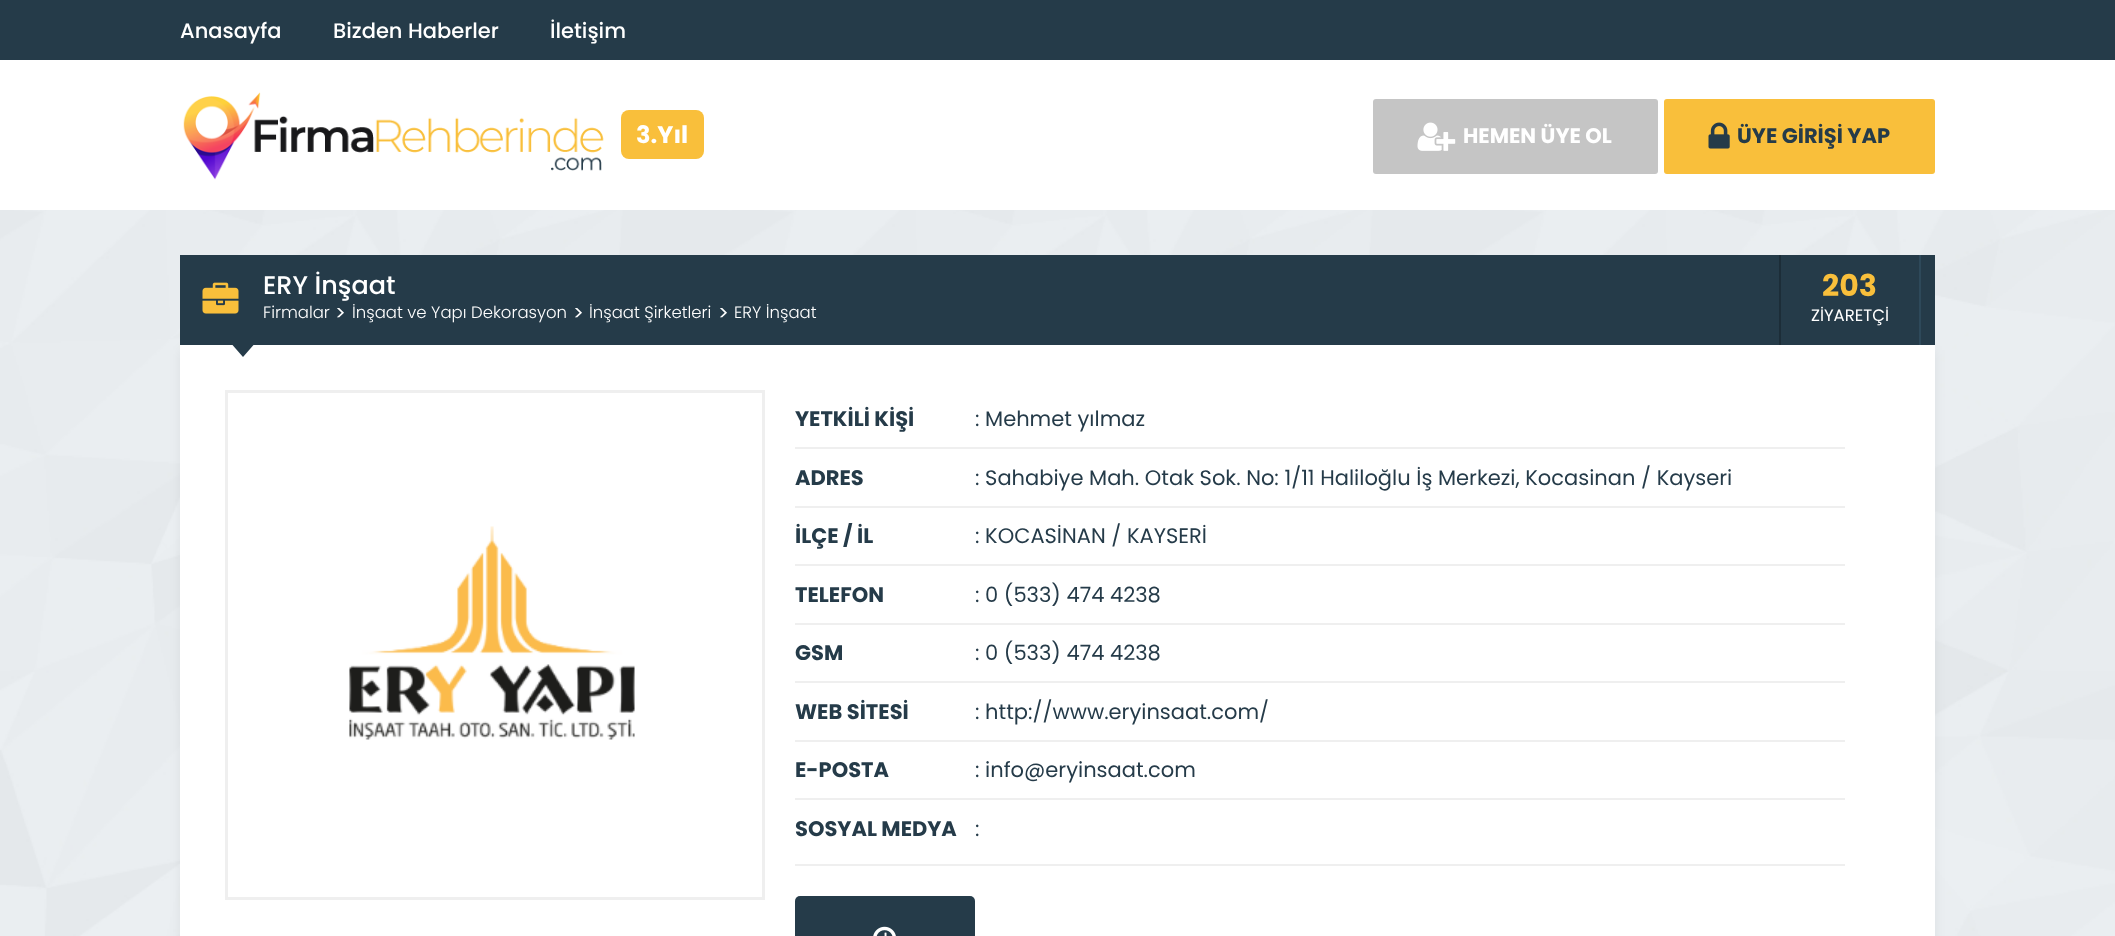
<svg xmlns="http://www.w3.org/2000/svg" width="2115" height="936">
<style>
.a{font:500 21px Poppins;fill:#fff}
.b{font:bold 24px Poppins;fill:#fff}
.c{font:bold 21px Poppins;fill:#fff}
.d{font:bold 21px Poppins;fill:#253b49}
.e{font:500 25.5px Poppins;fill:#fff}
.f{font:300 16.5px Poppins;fill:#fff}
.g{font:20px Poppins;fill:#fff}
.h{font:bold 30px Poppins;fill:#f9bf3b}
.i{font:16.5px Poppins;fill:#fff}
.j{font:21px Poppins;fill:#253b49}
</style>
<rect width="100%" height="100%" fill="#fff"/>
<image href="1.png" x="0" y="210" width="2115" height="726"/>
<path fill="#253b49" d="M0 0h2115v60H0z"/>
<image href="2.png" x="183" y="92" width="421" height="88"/>
<rect fill="#f9bf3b" x="621" y="110" width="83" height="49" rx="8"/>
<rect fill="#c5c5c5" x="1373" y="99" width="285" height="75" rx="3"/>
<image href="3.png" x="1417" y="122" width="39" height="29"/>
<rect fill="#f9bf3b" x="1664" y="99" width="271" height="75" rx="3"/>
<image href="4.png" x="1708" y="122" width="22" height="27"/>
<path fill="#0000000f" filter="blur(6px)" d="M180 350h1755v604H180z"/>
<path fill="#253b49" d="M180 255h1755v90H180z"/>
<image href="5.png" x="202" y="282" width="37" height="32"/>
<path fill="#2e495a" d="M1919 255h2v90H1919z"/>
<path fill="#1c2d38" d="M1779 255h2v90H1779z"/>
<path fill="#fff" d="M180 345h1755v591H180z"/>
<path fill="#253b49" d="M232.5 345h21l-10.5 12z"/>
<path fill="none" stroke="#efefef" stroke-width="3" d="M226.5 391.5h537v507H226.5z"/>
<image href="6.png" x="349" y="526" width="286" height="214"/>
<path fill="#efefef" d="M795 447h1050v2H795z"/>
<path fill="#efefef" d="M795 506h1050v2H795z"/>
<path fill="#efefef" d="M795 564h1050v2H795z"/>
<path fill="#efefef" d="M795 623h1050v2H795z"/>
<path fill="#efefef" d="M795 681h1050v2H795z"/>
<path fill="#efefef" d="M795 740h1050v2H795z"/>
<path fill="#efefef" d="M795 798h1050v2H795z"/>
<path fill="#efefef" d="M795 864h1050v2H795z"/>
<rect fill="#253b49" x="795" y="896" width="180" height="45" rx="5"/>
<image href="7.png" x="873" y="926" width="23" height="10"/>
<text class="a" x="180" y="38">Anasayfa</text>
<text class="a" x="333" y="38">Bizden Haberler</text>
<text class="a" x="550" y="38">İletişim</text>
<text class="b" x="636" y="143">3.Yıl</text>
<text class="c" x="1463" y="143">HEMEN ÜYE OL</text>
<text class="d" x="1737" y="143">ÜYE GİRİŞİ YAP</text>
<text class="e" x="263" y="294">ERY İnşaat</text>
<text class="f" x="263" y="318">Firmalar</text>
<text class="g" x="335" y="320">&gt;</text>
<text class="f" x="352" y="318">İnşaat ve Yapı Dekorasyon</text>
<text class="g" x="573" y="320">&gt;</text>
<text class="f" x="589" y="318">İnşaat Şirketleri</text>
<text class="g" x="718" y="320">&gt;</text>
<text class="f" x="734" y="318">ERY İnşaat</text>
<text class="h" x="1822" y="296">203</text>
<text class="i" x="1811" y="321">ZİYARETÇİ</text>
<text class="d" x="795" y="426">YETKİLİ KİŞİ</text>
<text class="j" x="975" y="426">: Mehmet yılmaz</text>
<text class="d" x="795" y="485">ADRES</text>
<text class="j" x="975" y="485">: Sahabiye Mah. Otak Sok. No: 1/11 Haliloğlu İş Merkezi, Kocasinan / Kayseri</text>
<text class="d" x="795" y="543">İLÇE / İL</text>
<text class="j" x="975" y="543">: KOCASİNAN / KAYSERİ</text>
<text class="d" x="795" y="602">TELEFON</text>
<text class="j" x="975" y="602">: 0 (533) 474 4238</text>
<text class="d" x="795" y="660">GSM</text>
<text class="j" x="975" y="660">: 0 (533) 474 4238</text>
<text class="d" x="795" y="719">WEB SİTESİ</text>
<text class="j" x="975" y="719">: http://www.eryinsaat.com/</text>
<text class="d" x="795" y="777">E-POSTA</text>
<text class="j" x="975" y="777">: info@eryinsaat.com</text>
<text class="d" x="795" y="836">SOSYAL MEDYA</text>
<text class="j" x="975" y="836">:</text>
</svg>
